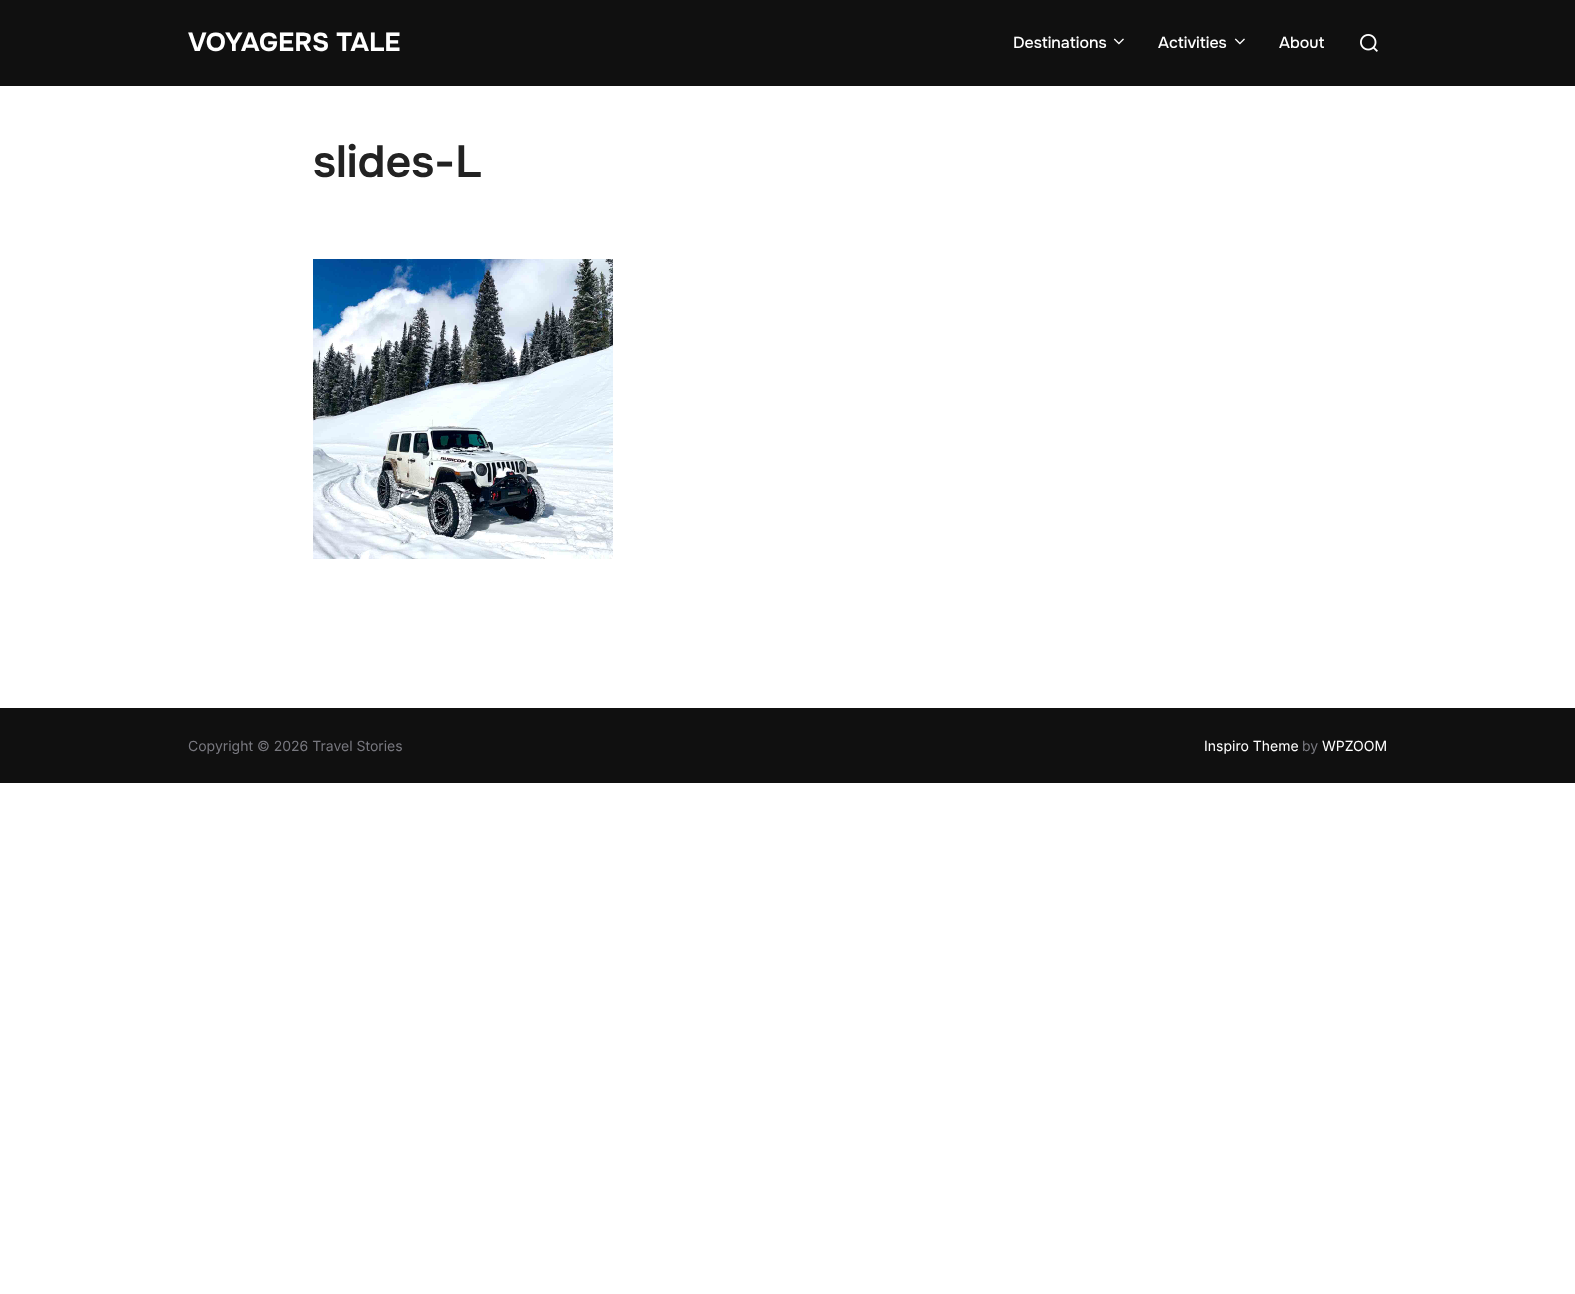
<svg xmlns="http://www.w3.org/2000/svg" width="1575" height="1294">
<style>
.a{font:bold 26px Onest;fill:#fff}
.b{font:500 16px Onest;fill:#fff}
.c{font:600 45px Onest;fill:#222}
.d{font:14px Inter;fill:#78787f}
.e{font:14px Inter;fill:#fff}
</style>
<rect width="100%" height="100%" fill="#fff"/>
<path fill="#101010" d="M0 0h1575v86H0z"/>
<image href="1.png" x="1113" y="38" width="11" height="7"/>
<image href="1.png" x="1234" y="38" width="11" height="7"/>
<image href="2.png" x="1360" y="34" width="18" height="18"/>
<image href="3.png" x="313" y="259" width="300" height="300"/>
<path fill="#101010" d="M0 708h1575v75H0z"/>
<text class="a" x="188" y="51">VOYAGERS TALE</text>
<text class="b" x="1013" y="48">Destinations</text>
<text class="b" x="1158" y="48">Activities</text>
<text class="b" x="1279" y="48">About</text>
<text class="c" x="313" y="177">slides-L</text>
<text class="d" x="188" y="751">Copyright © 2026 Travel Stories</text>
<text class="e" x="1204" y="751">Inspiro Theme</text>
<text class="d" x="1302" y="751">by</text>
<text class="e" x="1322" y="751">WPZOOM</text>
</svg>
